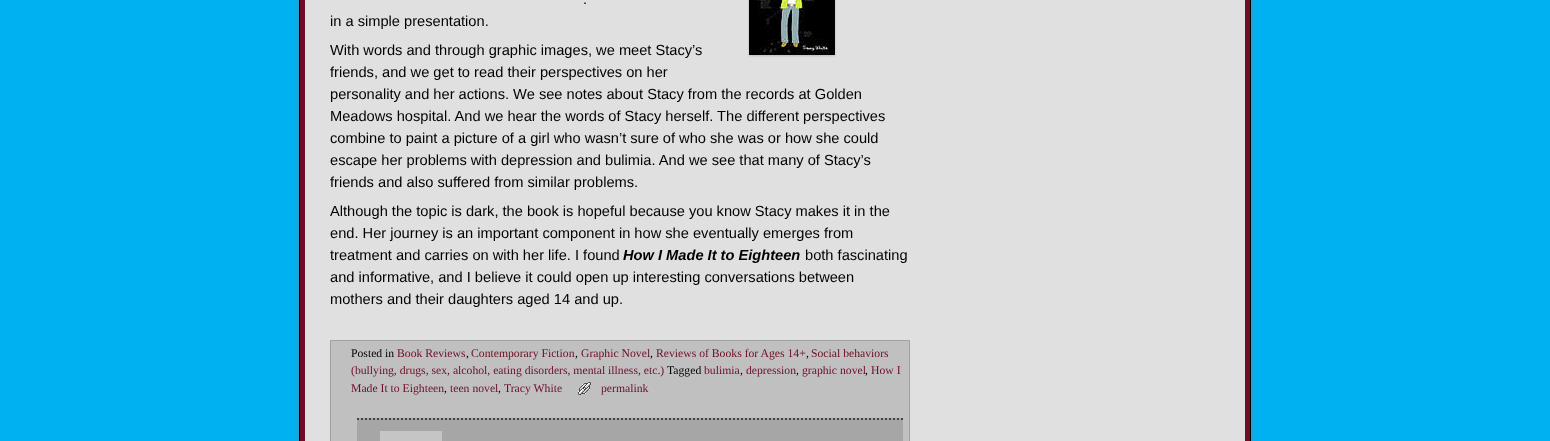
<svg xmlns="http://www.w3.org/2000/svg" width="1550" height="441">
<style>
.a{font:14.65px Liberation Sans;fill:#000}
.b{font:italic bold 14.65px Liberation Sans;fill:#000}
.c{font:11.7px Liberation Serif;fill:#000}
.d{font:11.7px Liberation Serif;fill:#6e0d25}
</style>
<rect width="100%" height="100%" fill="#00b1f2"/>
<rect fill="#7f7f7f40" filter="blur(1.5px)" x="296" y="-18" width="958" height="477" rx="13"/>
<path fill="#6e0d25" stroke="#000" d="M299.5 -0.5h951v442H299.5z"/>
<path fill="#e1e0e0" d="M305 0h940v441H305z"/>
<path fill="#bbb" filter="blur(1px)" d="M749 -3h86v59H749z"/>
<image href="1.png" x="749" y="0" width="86" height="55"/>
<path fill="#c0c0c0" stroke="#a0a0a0" d="M330.5 340.5h579v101H330.5z"/>
<image href="2.png" x="578" y="382" width="13" height="13"/>
<path fill="#a6a6a6" d="M357 418h546v23H357z"/>
<path fill="none" stroke="#444" stroke-width="2" stroke-dasharray="2 2" d="M357 419h546"/>
<path fill="#c5c5c5" d="M380 431h62v10H380z"/>
<text class="a" x="583" y="4">.</text>
<text class="a" x="330" y="26">in a simple presentation.</text>
<text class="a" x="330" y="55">With words and through graphic images, we meet Stacy’s</text>
<text class="a" x="330" y="77">friends, and we get to read their perspectives on her</text>
<text class="a" x="330" y="99">personality and her actions. We see notes about Stacy from the records at Golden</text>
<text class="a" x="330" y="121">Meadows hospital. And we hear the words of Stacy herself. The different perspectives</text>
<text class="a" x="330" y="143">combine to paint a picture of a girl who wasn’t sure of who she was or how she could</text>
<text class="a" x="330" y="165">escape her problems with depression and bulimia. And we see that many of Stacy’s</text>
<text class="a" x="330" y="187">friends and also suffered from similar problems.</text>
<text class="a" x="330" y="216">Although the topic is dark, the book is hopeful because you know Stacy makes it in the</text>
<text class="a" x="330" y="238">end. Her journey is an important component in how she eventually emerges from</text>
<text class="a" x="330" y="260">treatment and carries on with her life. I found</text>
<text class="b" x="623" y="260">How I Made It to Eighteen</text>
<text class="a" x="805" y="260">both fascinating</text>
<text class="a" x="330" y="282">and informative, and I believe it could open up interesting conversations between</text>
<text class="a" x="330" y="304">mothers and their daughters aged 14 and up.</text>
<text class="c" x="351" y="357">Posted in</text>
<text class="d" x="397" y="357">Book Reviews</text>
<text class="c" x="466" y="357">,</text>
<text class="d" x="471" y="357">Contemporary Fiction</text>
<text class="c" x="575" y="357">,</text>
<text class="d" x="581" y="357">Graphic Novel</text>
<text class="c" x="650" y="357">,</text>
<text class="d" x="656" y="357">Reviews of Books for Ages 14+</text>
<text class="c" x="806" y="357">,</text>
<text class="d" x="811" y="357">Social behaviors</text>
<text class="d" x="351" y="374">(bullying, drugs, sex, alcohol, eating disorders, mental illness, etc.)</text>
<text class="c" x="667" y="374">Tagged</text>
<text class="d" x="704" y="374">bulimia</text>
<text class="c" x="740" y="374">,</text>
<text class="d" x="746" y="374">depression</text>
<text class="c" x="796" y="374">,</text>
<text class="d" x="802" y="374">graphic novel</text>
<text class="c" x="865" y="374">,</text>
<text class="d" x="871" y="374">How I</text>
<text class="d" x="351" y="392">Made It to Eighteen</text>
<text class="c" x="444" y="392">,</text>
<text class="d" x="450" y="392">teen novel</text>
<text class="c" x="498" y="392">,</text>
<text class="d" x="504" y="392">Tracy White</text>
<text class="d" x="601" y="392">permalink</text>
</svg>
